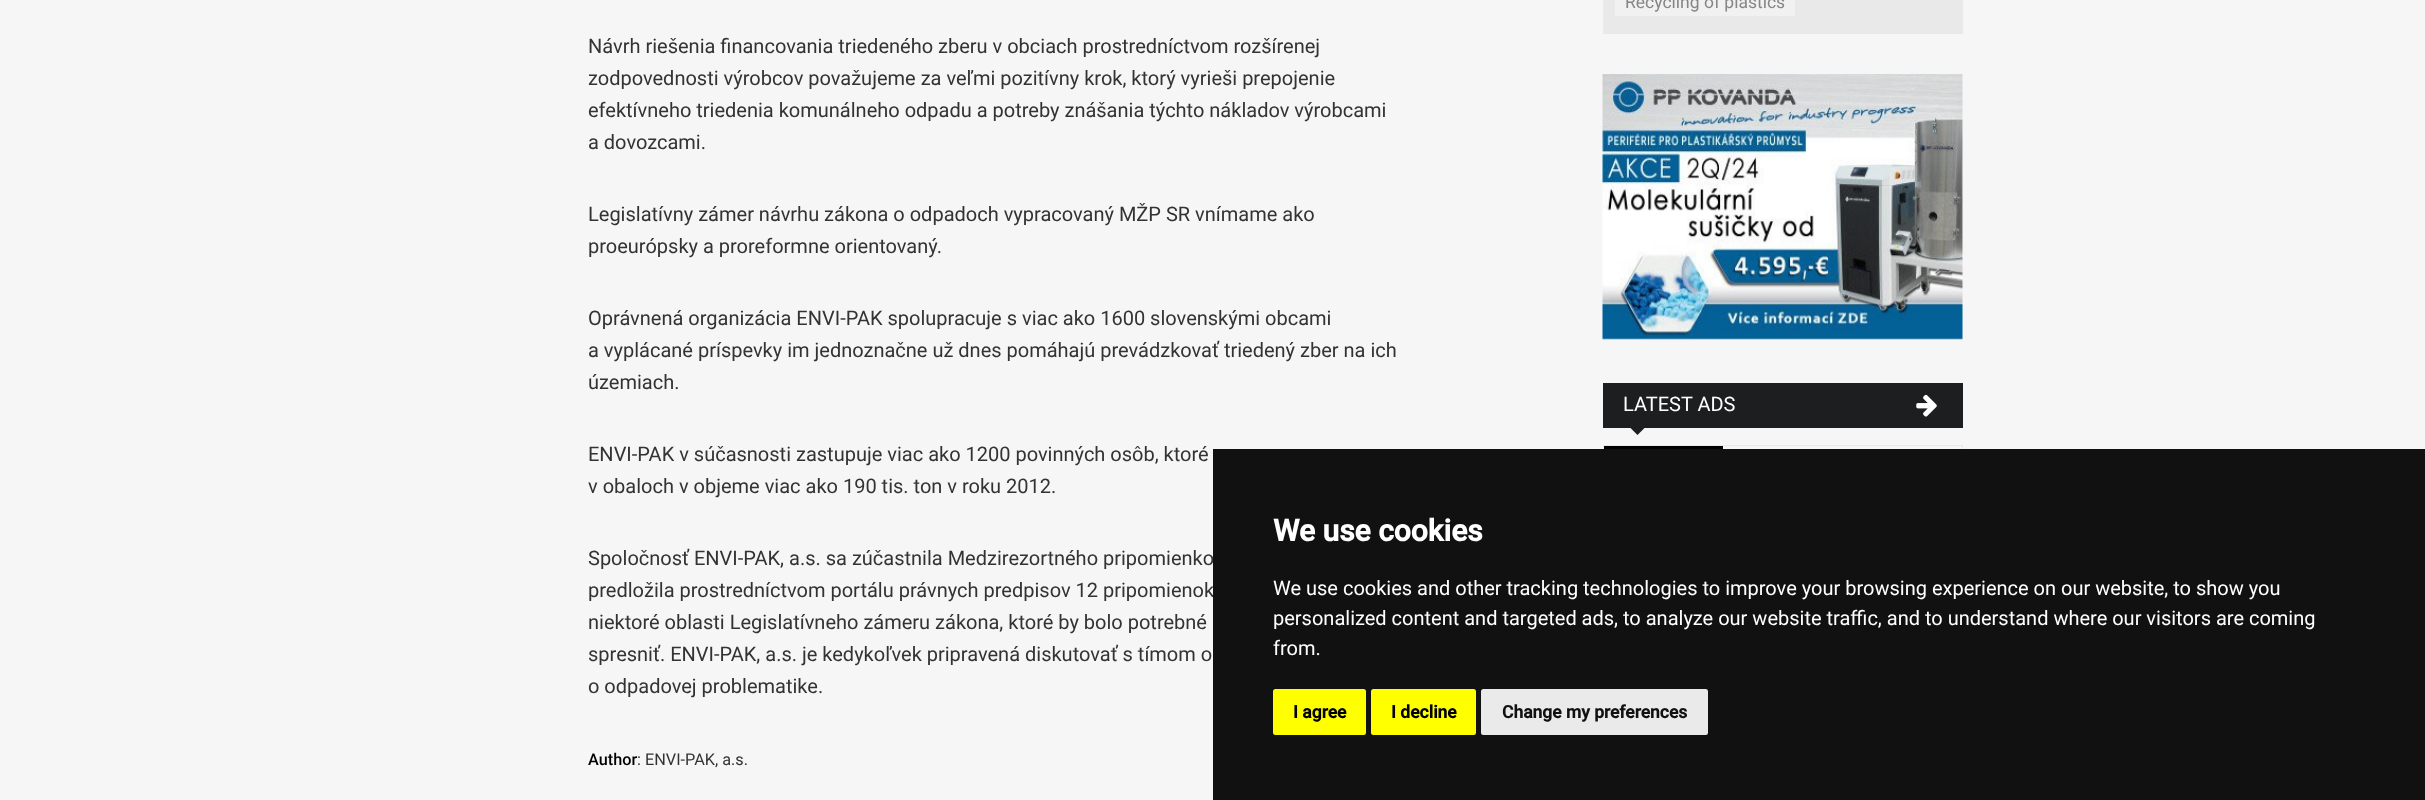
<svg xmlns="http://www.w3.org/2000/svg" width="2425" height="800">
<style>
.a{font:20px Roboto;fill:#333}
.b{font:500 16.25px Roboto;fill:#000}
.c{font:16.25px Roboto;fill:#333}
.d{font:17.5px Roboto;fill:#868686}
.e{font:20px Roboto;fill:#fff}
.f{font:bold 30px Roboto;fill:#fff}
.g{font:bold 17.5px Roboto;fill:#000}
.h{font:bold 17.5px Roboto;fill:#111}
</style>
<rect width="100%" height="100%" fill="#f6f6f6"/>
<path fill="#e9e9e9" d="M1603 0h360v34H1603z"/>
<path fill="#f1f1f1" d="M1615 0h180v16H1615z"/>
<image href="1.png" x="1602" y="74" width="361" height="266"/>
<path fill="#1d1e20" d="M1603 383h360v45H1603z"/>
<image href="2.png" x="1916" y="394" width="21" height="23"/>
<path fill="#1d1e20" d="M1630 427.5h15l-7.5 7.5z"/>
<path fill="none" stroke="#e9e9e9" d="M1603.5 445.5h359v39H1603.5z"/>
<path fill="#000" d="M1604 446h119v3H1604z"/>
<text class="a" x="588" y="53">Návrh riešenia financovania triedeného zberu v obciach prostredníctvom rozšírenej</text>
<text class="a" x="588" y="85">zodpovednosti výrobcov považujeme za veľmi pozitívny krok, ktorý vyrieši prepojenie</text>
<text class="a" x="588" y="117">efektívneho triedenia komunálneho odpadu a potreby znášania týchto nákladov výrobcami</text>
<text class="a" x="588" y="149">a dovozcami.</text>
<text class="a" x="588" y="221">Legislatívny zámer návrhu zákona o odpadoch vypracovaný MŽP SR vnímame ako</text>
<text class="a" x="588" y="253">proeurópsky a proreformne orientovaný.</text>
<text class="a" x="588" y="325">Oprávnená organizácia ENVI-PAK spolupracuje s viac ako 1600 slovenskými obcami</text>
<text class="a" x="588" y="357">a vyplácané príspevky im jednoznačne už dnes pomáhajú prevádzkovať triedený zber na ich</text>
<text class="a" x="588" y="389">územiach.</text>
<text class="a" x="588" y="461">ENVI-PAK v súčasnosti zastupuje viac ako 1200 povinných osôb, ktoré</text>
<text class="a" x="588" y="493">v obaloch v objeme viac ako 190 tis. ton v roku 2012.</text>
<text class="a" x="588" y="565">Spoločnosť ENVI-PAK, a.s. sa zúčastnila Medzirezortného pripomienko</text>
<text class="a" x="588" y="597">predložila prostredníctvom portálu právnych predpisov 12 pripomienok</text>
<text class="a" x="588" y="629">niektoré oblasti Legislatívneho zámeru zákona, ktoré by bolo potrebné</text>
<text class="a" x="588" y="661">spresniť. ENVI-PAK, a.s. je kedykoľvek pripravená diskutovať s tímom o</text>
<text class="a" x="588" y="693">o odpadovej problematike.</text>
<text class="b" x="588" y="765">Author</text>
<text class="c" x="637" y="765">: ENVI-PAK, a.s.</text>
<text class="d" x="1625" y="8">Recycling of plastics</text>
<text class="e" x="1623" y="411">LATEST ADS</text>
<path fill="#111" d="M1213 449h1212v351H1213z"/>
<text class="f" x="1273" y="541">We use cookies</text>
<text class="e" x="1273" y="595">We use cookies and other tracking technologies to improve your browsing experience on our website, to show you</text>
<text class="e" x="1273" y="625">personalized content and targeted ads, to analyze our website traffic, and to understand where our visitors are coming</text>
<text class="e" x="1273" y="655">from.</text>
<rect fill="#ff0" x="1273" y="689" width="93" height="46" rx="2.5"/>
<text class="g" x="1293" y="718">I agree</text>
<rect fill="#ff0" x="1371" y="689" width="105" height="46" rx="2.5"/>
<text class="g" x="1391" y="718">I decline</text>
<rect fill="#eaeaea" x="1481" y="689" width="227" height="46" rx="2.5"/>
<text class="h" x="1502" y="718">Change my preferences</text>
</svg>
